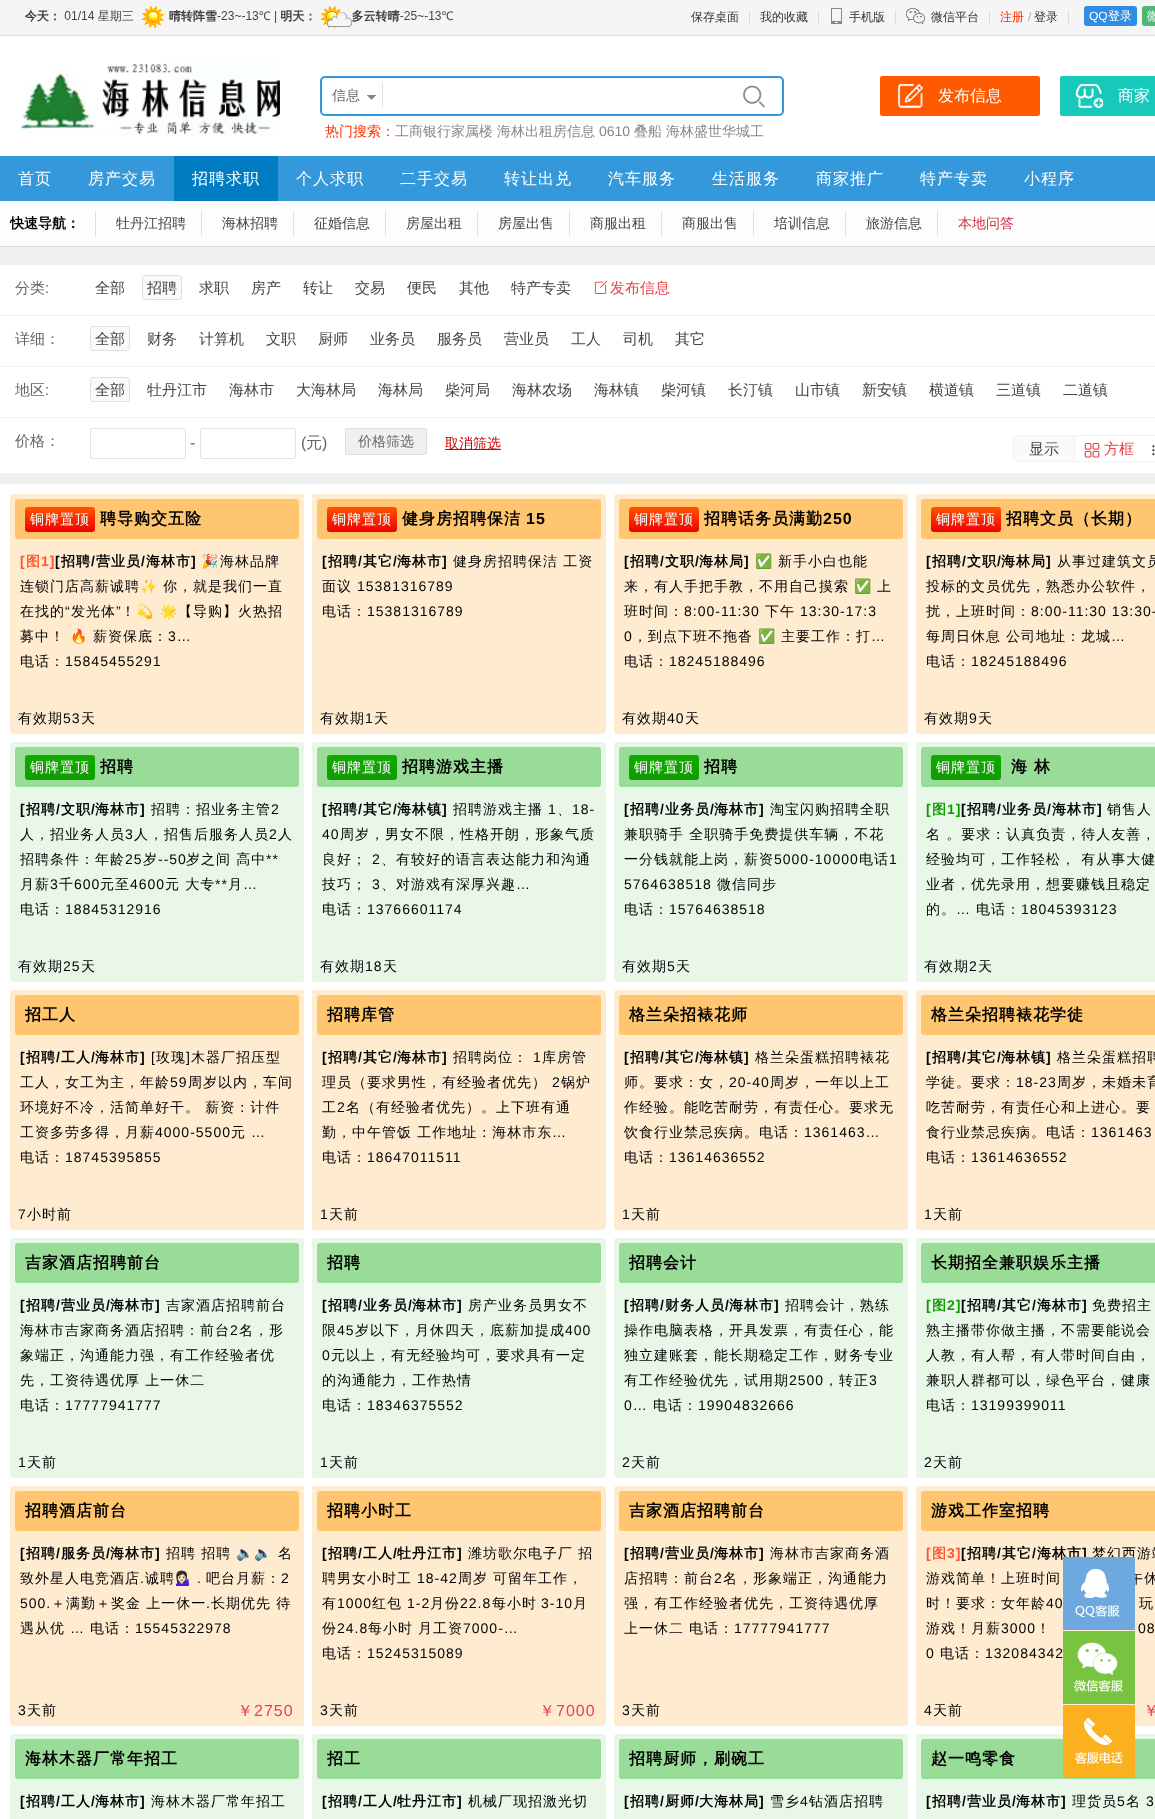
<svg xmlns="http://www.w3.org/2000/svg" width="1155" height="1819">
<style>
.a{font:500 12px WenQuanYi Zen Hei;fill:#333}
.b{font:500 12px WenQuanYi Zen Hei;fill:#f30}
.c{font:12px Liberation Sans;fill:#aaa}
.d{font:12px Liberation Sans;fill:#fff}
.e{font:500 12px WenQuanYi Zen Hei;fill:#fff}
.f{font:500 14px WenQuanYi Zen Hei;fill:#666}
.g{font:500 14px WenQuanYi Zen Hei;fill:#f30}
.h{font:500 14px WenQuanYi Zen Hei;fill:#888}
.i{font:14px Liberation Sans;fill:#888}
.j{font:500 16px WenQuanYi Zen Hei;fill:#fff}
.k{font:500 16px WenQuanYi Zen Hei;letter-spacing:1px;fill:#fff}
.l{font:bold 14px WenQuanYi Zen Hei;fill:#000}
.m{font:500 14px WenQuanYi Zen Hei;fill:#444}
.n{font:500 14px WenQuanYi Zen Hei;fill:#c73246}
.o{font:500 15px WenQuanYi Zen Hei;fill:#666}
.p{font:15px Liberation Sans;fill:#666}
.q{font:500 15px WenQuanYi Zen Hei;fill:#444}
.r{font:500 15px WenQuanYi Zen Hei;fill:#ed414a}
.s{font:16px Liberation Sans;fill:#666}
.t{font:500 16px WenQuanYi Zen Hei;fill:#666}
.u{font:500 14px WenQuanYi Zen Hei;fill:#c00}
.v{font:500 14px WenQuanYi Zen Hei;letter-spacing:1px;fill:#fff}
.w{font:bold 16px WenQuanYi Zen Hei;letter-spacing:1px;fill:#000}
.x{font:bold 14px Liberation Sans;letter-spacing:1px;fill:#ff552e}
.y{font:bold 14px WenQuanYi Zen Hei;letter-spacing:1px;fill:#ff552e}
.z{font:bold 14px Liberation Sans;letter-spacing:1px;fill:#000}
.a1{font:bold 14px WenQuanYi Zen Hei;letter-spacing:1px;fill:#000}
.b1{font:14px Noto Color Emoji;letter-spacing:1px;fill:#000}
.c1{font:500 14px WenQuanYi Zen Hei;letter-spacing:1px;fill:#000}
.d1{font:14px Liberation Sans;letter-spacing:1px;fill:#000}
.e1{font:bold 16px Liberation Sans;letter-spacing:1px;fill:#000}
.f1{font:bold 14px Liberation Sans;letter-spacing:1px;fill:#109c00}
.g1{font:bold 14px WenQuanYi Zen Hei;letter-spacing:1px;fill:#109c00}
.h1{font:500 16px WenQuanYi Zen Hei;letter-spacing:1px;fill:#ed414a}
.i1{font:16px Liberation Sans;letter-spacing:1px;fill:#ed414a}
</style>
<defs>
<linearGradient id="g1" gradientUnits="userSpaceOnUse" x1="60" y1="507" x2="60" y2="532"><stop offset="0" stop-color="#f50"/><stop offset="1" stop-color="#e00"/></linearGradient>
<linearGradient id="g2" gradientUnits="userSpaceOnUse" x1="362" y1="507" x2="362" y2="532"><stop offset="0" stop-color="#f50"/><stop offset="1" stop-color="#e00"/></linearGradient>
<linearGradient id="g3" gradientUnits="userSpaceOnUse" x1="664" y1="507" x2="664" y2="532"><stop offset="0" stop-color="#f50"/><stop offset="1" stop-color="#e00"/></linearGradient>
<linearGradient id="g4" gradientUnits="userSpaceOnUse" x1="966" y1="507" x2="966" y2="532"><stop offset="0" stop-color="#f50"/><stop offset="1" stop-color="#e00"/></linearGradient>
<linearGradient id="g5" gradientUnits="userSpaceOnUse" x1="60" y1="755" x2="60" y2="780"><stop offset="0" stop-color="#10aa00"/><stop offset="1" stop-color="#109c00"/></linearGradient>
<linearGradient id="g6" gradientUnits="userSpaceOnUse" x1="362" y1="755" x2="362" y2="780"><stop offset="0" stop-color="#10aa00"/><stop offset="1" stop-color="#109c00"/></linearGradient>
<linearGradient id="g7" gradientUnits="userSpaceOnUse" x1="664" y1="755" x2="664" y2="780"><stop offset="0" stop-color="#10aa00"/><stop offset="1" stop-color="#109c00"/></linearGradient>
<linearGradient id="g8" gradientUnits="userSpaceOnUse" x1="966" y1="755" x2="966" y2="780"><stop offset="0" stop-color="#10aa00"/><stop offset="1" stop-color="#109c00"/></linearGradient>
</defs>
<rect width="100%" height="100%" fill="#eeeff1"/>
<path fill="#f5f5f5" d="M0 0h1155v35H0z"/>
<path fill="#dedede" d="M0 35h1155v1H0z"/>
<image href="1.png" x="25" y="5" width="429" height="24"/>
<path fill="#ddd" d="M749 10h1v15H749z"/>
<path fill="#efefef" d="M749 10h1v1H749z"/>
<path fill="#ddd" d="M818 10h1v15H818z"/>
<path fill="#efefef" d="M818 10h1v1H818z"/>
<image href="2.png" x="831" y="8" width="11" height="16"/>
<path fill="#ddd" d="M895 10h1v15H895z"/>
<path fill="#efefef" d="M895 10h1v1H895z"/>
<image href="3.png" x="906" y="8" width="19" height="16"/>
<path fill="#ddd" d="M989 10h1v15H989z"/>
<path fill="#efefef" d="M989 10h1v1H989z"/>
<path fill="#ddd" d="M1068 10h1v15H1068z"/>
<path fill="#efefef" d="M1068 10h1v1H1068z"/>
<rect fill="#318de4" x="1084" y="6" width="53" height="20" rx="3"/>
<rect fill="#50b674" x="1142" y="6" width="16" height="20" rx="3"/>
<path fill="#fff" d="M0 36h1155v120H0z"/>
<image href="4.png" x="20" y="56" width="260" height="80"/>
<rect fill="none" stroke="#3598db" stroke-width="2" x="321" y="77" width="462" height="38" rx="4"/>
<image href="5.png" x="367" y="95" width="9" height="5"/>
<path fill="#dedede" d="M382 83h1v25H382z"/>
<image href="6.png" x="743" y="85" width="22" height="23"/>
<rect fill="#ff5a00" x="880" y="76" width="160" height="40" rx="2"/>
<image href="7.png" x="898" y="84" width="25" height="24"/>
<rect fill="#18c8bb" x="1060" y="76" width="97" height="40" rx="2"/>
<image href="8.png" x="1076" y="84" width="27" height="24"/>
<path fill="#3598db" d="M0 156h1155v45H0z"/>
<path fill="#007cc3" d="M174 156h104v45H174z"/>
<path fill="#fdfdfd" d="M0 201h1155v45H0z"/>
<path fill="#dedede" d="M0 246h1155v1H0z"/>
<path fill="#dedede" d="M95 211h1v25H95z"/>
<path fill="#dedede" d="M201 211h1v25H201z"/>
<path fill="#dedede" d="M293 211h1v25H293z"/>
<path fill="#dedede" d="M385 211h1v25H385z"/>
<path fill="#dedede" d="M477 211h1v25H477z"/>
<path fill="#dedede" d="M569 211h1v25H569z"/>
<path fill="#dedede" d="M661 211h1v25H661z"/>
<path fill="#dedede" d="M753 211h1v25H753z"/>
<path fill="#dedede" d="M845 211h1v25H845z"/>
<path fill="#dedede" d="M937 211h1v25H937z"/>
<rect fill="#fff" y="265" width="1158" height="209" rx="3"/>
<path fill="#f0f0f0" d="M0 315h1155v1H0z"/>
<rect fill="#fafafa" stroke="#dedede" x="142.5" y="275.5" width="39" height="24" rx="2.5"/>
<image href="9.png" x="594" y="280" width="13" height="14"/>
<path fill="#f0f0f0" d="M0 366h1155v1H0z"/>
<rect fill="#fafafa" stroke="#dedede" x="90.5" y="326.5" width="39" height="24" rx="2.5"/>
<path fill="#f0f0f0" d="M0 417h1155v1H0z"/>
<rect fill="#fafafa" stroke="#dedede" x="90.5" y="377.5" width="39" height="24" rx="2.5"/>
<path fill="#f0f0f0" d="M0 473h1155v1H0z"/>
<rect fill="none" stroke="#e2e2e2" x="90.5" y="428.5" width="95" height="30" rx="1.5"/>
<rect fill="none" stroke="#e2e2e2" x="200.5" y="428.5" width="95" height="30" rx="1.5"/>
<rect fill="#f0f0f0" stroke="#dedede" x="345.5" y="428.5" width="81" height="26" rx="1.5"/>
<path fill="#c00" d="M445 449h56v1H445z"/>
<rect fill="none" stroke="#f1f1f1" x="1013.5" y="435.5" width="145" height="26" rx="2.5"/>
<path fill="#fafafa" d="M1016 436h59v25h-59c-1 0-2-1-2-2v-21c0-1 1-2 2-2z"/>
<path fill="#f1f1f1" d="M1074 436h1v25H1074z"/>
<image href="10.png" x="1084" y="442" width="16" height="16"/>
<image href="11.png" x="1152" y="445" width="3" height="11"/>
<rect fill="#fff" y="484" width="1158" height="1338" rx="3"/>
<rect fill="#ffecd0" x="10" y="494" width="294" height="240" rx="3"/>
<rect fill="#ffc66f" x="15" y="499" width="284" height="40" rx="3"/>
<rect fill="url(#g1)" x="25" y="507" width="70" height="25" rx="3"/>
<rect fill="#ffecd0" x="312" y="494" width="294" height="240" rx="3"/>
<rect fill="#ffc66f" x="317" y="499" width="284" height="40" rx="3"/>
<rect fill="url(#g2)" x="327" y="507" width="70" height="25" rx="3"/>
<rect fill="#ffecd0" x="614" y="494" width="294" height="240" rx="3"/>
<rect fill="#ffc66f" x="619" y="499" width="284" height="40" rx="3"/>
<rect fill="url(#g3)" x="629" y="507" width="70" height="25" rx="3"/>
<rect fill="#ffecd0" x="916" y="494" width="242" height="240" rx="3"/>
<rect fill="#ffc66f" x="921" y="499" width="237" height="40" rx="3"/>
<rect fill="url(#g4)" x="931" y="507" width="70" height="25" rx="3"/>
<rect fill="#e8f7e8" x="10" y="742" width="294" height="240" rx="3"/>
<rect fill="#98dc98" x="15" y="747" width="284" height="40" rx="3"/>
<rect fill="url(#g5)" x="25" y="755" width="70" height="25" rx="3"/>
<rect fill="#e8f7e8" x="312" y="742" width="294" height="240" rx="3"/>
<rect fill="#98dc98" x="317" y="747" width="284" height="40" rx="3"/>
<rect fill="url(#g6)" x="327" y="755" width="70" height="25" rx="3"/>
<rect fill="#e8f7e8" x="614" y="742" width="294" height="240" rx="3"/>
<rect fill="#98dc98" x="619" y="747" width="284" height="40" rx="3"/>
<rect fill="url(#g7)" x="629" y="755" width="70" height="25" rx="3"/>
<rect fill="#e8f7e8" x="916" y="742" width="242" height="240" rx="3"/>
<rect fill="#98dc98" x="921" y="747" width="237" height="40" rx="3"/>
<rect fill="url(#g8)" x="931" y="755" width="70" height="25" rx="3"/>
<rect fill="#ffecd0" x="10" y="990" width="294" height="240" rx="3"/>
<rect fill="#ffc66f" x="15" y="995" width="284" height="40" rx="3"/>
<rect fill="#ffecd0" x="312" y="990" width="294" height="240" rx="3"/>
<rect fill="#ffc66f" x="317" y="995" width="284" height="40" rx="3"/>
<rect fill="#ffecd0" x="614" y="990" width="294" height="240" rx="3"/>
<rect fill="#ffc66f" x="619" y="995" width="284" height="40" rx="3"/>
<rect fill="#ffecd0" x="916" y="990" width="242" height="240" rx="3"/>
<rect fill="#ffc66f" x="921" y="995" width="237" height="40" rx="3"/>
<rect fill="#e8f7e8" x="10" y="1238" width="294" height="240" rx="3"/>
<rect fill="#98dc98" x="15" y="1243" width="284" height="40" rx="3"/>
<rect fill="#e8f7e8" x="312" y="1238" width="294" height="240" rx="3"/>
<rect fill="#98dc98" x="317" y="1243" width="284" height="40" rx="3"/>
<rect fill="#e8f7e8" x="614" y="1238" width="294" height="240" rx="3"/>
<rect fill="#98dc98" x="619" y="1243" width="284" height="40" rx="3"/>
<rect fill="#e8f7e8" x="916" y="1238" width="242" height="240" rx="3"/>
<rect fill="#98dc98" x="921" y="1243" width="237" height="40" rx="3"/>
<rect fill="#ffecd0" x="10" y="1486" width="294" height="240" rx="3"/>
<rect fill="#ffc66f" x="15" y="1491" width="284" height="40" rx="3"/>
<rect fill="#ffecd0" x="312" y="1486" width="294" height="240" rx="3"/>
<rect fill="#ffc66f" x="317" y="1491" width="284" height="40" rx="3"/>
<rect fill="#ffecd0" x="614" y="1486" width="294" height="240" rx="3"/>
<rect fill="#ffc66f" x="619" y="1491" width="284" height="40" rx="3"/>
<rect fill="#ffecd0" x="916" y="1486" width="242" height="240" rx="3"/>
<rect fill="#ffc66f" x="921" y="1491" width="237" height="40" rx="3"/>
<rect fill="#e8f7e8" x="10" y="1734" width="294" height="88" rx="3"/>
<rect fill="#98dc98" x="15" y="1739" width="284" height="40" rx="3"/>
<rect fill="#e8f7e8" x="312" y="1734" width="294" height="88" rx="3"/>
<rect fill="#98dc98" x="317" y="1739" width="284" height="40" rx="3"/>
<rect fill="#e8f7e8" x="614" y="1734" width="294" height="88" rx="3"/>
<rect fill="#98dc98" x="619" y="1739" width="284" height="40" rx="3"/>
<rect fill="#e8f7e8" x="916" y="1734" width="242" height="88" rx="3"/>
<rect fill="#98dc98" x="921" y="1739" width="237" height="40" rx="3"/>
<path fill="#78c340" d="M1063 1631h72v73H1063z"/>
<image href="13.png" x="1074" y="1642" width="49" height="50"/>
<path fill="#fbb01f" d="M1063 1705h72v73H1063z"/>
<image href="14.png" x="1075" y="1718" width="48" height="46"/>
<text class="a" x="691" y="21">保存桌面</text>
<text class="a" x="760" y="21">我的收藏</text>
<text class="a" x="849" y="21">手机版</text>
<text class="a" x="931" y="21">微信平台</text>
<text class="b" x="1000" y="21">注册</text>
<text class="c" x="1028" y="21">/</text>
<text class="a" x="1034" y="21">登录</text>
<text class="d" x="1089" y="20">QQ</text>
<text class="e" x="1108" y="20">登录</text>
<text class="e" x="1147" y="20">微</text>
<text class="f" x="332" y="100">信息</text>
<text class="g" x="325" y="136">热门搜索：</text>
<text class="h" x="395" y="136">工商银行家属楼</text>
<text class="h" x="497" y="136">海林出租房信息</text>
<text class="i" x="599" y="136">0610</text>
<text class="h" x="634" y="136">叠船</text>
<text class="h" x="666" y="136">海林盛世华城工</text>
<text class="j" x="938" y="101">发布信息</text>
<text class="j" x="1118" y="101">商家</text>
<text class="k" x="18" y="184">首页</text>
<text class="k" x="88" y="184">房产交易</text>
<text class="k" x="192" y="184">招聘求职</text>
<text class="k" x="296" y="184">个人求职</text>
<text class="k" x="400" y="184">二手交易</text>
<text class="k" x="504" y="184">转让出兑</text>
<text class="k" x="608" y="184">汽车服务</text>
<text class="k" x="712" y="184">生活服务</text>
<text class="k" x="816" y="184">商家推广</text>
<text class="k" x="920" y="184">特产专卖</text>
<text class="k" x="1024" y="184">小程序</text>
<text class="l" x="10" y="228">快速导航：</text>
<text class="m" x="116" y="228">牡丹江招聘</text>
<text class="m" x="222" y="228">海林招聘</text>
<text class="m" x="314" y="228">征婚信息</text>
<text class="m" x="406" y="228">房屋出租</text>
<text class="m" x="498" y="228">房屋出售</text>
<text class="m" x="590" y="228">商服出租</text>
<text class="m" x="682" y="228">商服出售</text>
<text class="m" x="774" y="228">培训信息</text>
<text class="m" x="866" y="228">旅游信息</text>
<text class="n" x="958" y="228">本地问答</text>
<text class="o" x="15" y="293">分类</text>
<text class="p" x="45" y="293">:</text>
<text class="q" x="95" y="293">全部</text>
<text class="q" x="147" y="293">招聘</text>
<text class="q" x="199" y="293">求职</text>
<text class="q" x="251" y="293">房产</text>
<text class="q" x="303" y="293">转让</text>
<text class="q" x="355" y="293">交易</text>
<text class="q" x="407" y="293">便民</text>
<text class="q" x="459" y="293">其他</text>
<text class="q" x="511" y="293">特产专卖</text>
<text class="r" x="610" y="293">发布信息</text>
<text class="o" x="15" y="344">详细：</text>
<text class="q" x="95" y="344">全部</text>
<text class="q" x="147" y="344">财务</text>
<text class="q" x="199" y="344">计算机</text>
<text class="q" x="266" y="344">文职</text>
<text class="q" x="318" y="344">厨师</text>
<text class="q" x="370" y="344">业务员</text>
<text class="q" x="437" y="344">服务员</text>
<text class="q" x="504" y="344">营业员</text>
<text class="q" x="571" y="344">工人</text>
<text class="q" x="623" y="344">司机</text>
<text class="q" x="675" y="344">其它</text>
<text class="o" x="15" y="395">地区</text>
<text class="p" x="45" y="395">:</text>
<text class="q" x="95" y="395">全部</text>
<text class="q" x="147" y="395">牡丹江市</text>
<text class="q" x="229" y="395">海林市</text>
<text class="q" x="296" y="395">大海林局</text>
<text class="q" x="378" y="395">海林局</text>
<text class="q" x="445" y="395">柴河局</text>
<text class="q" x="512" y="395">海林农场</text>
<text class="q" x="594" y="395">海林镇</text>
<text class="q" x="661" y="395">柴河镇</text>
<text class="q" x="728" y="395">长汀镇</text>
<text class="q" x="795" y="395">山市镇</text>
<text class="q" x="862" y="395">新安镇</text>
<text class="q" x="929" y="395">横道镇</text>
<text class="q" x="996" y="395">三道镇</text>
<text class="q" x="1063" y="395">二道镇</text>
<text class="o" x="15" y="446">价格：</text>
<text class="s" x="190" y="448">-</text>
<text class="s" x="301" y="448">(</text>
<text class="t" x="306" y="448">元</text>
<text class="s" x="322" y="448">)</text>
<text class="f" x="358" y="446">价格筛选</text>
<text class="u" x="445" y="448">取消筛选</text>
<text class="q" x="1029" y="454">显示</text>
<text class="r" x="1104" y="454">方框</text>
<text class="v" x="30" y="524">铜牌置顶</text>
<text class="w" x="100" y="524">聘导购交五险</text>
<text class="x" x="20" y="566">[</text>
<text class="y" x="26" y="566">图</text>
<text class="x" x="41" y="566">1]</text>
<text class="z" x="55" y="566">[</text>
<text class="a1" x="61" y="566">招聘</text>
<text class="z" x="91" y="566">/</text>
<text class="a1" x="96" y="566">营业员</text>
<text class="z" x="141" y="566">/</text>
<text class="a1" x="146" y="566">海林市</text>
<text class="z" x="191" y="566">]</text>
<text class="b1" x="201" y="566">🎉</text>
<text class="c1" x="220" y="566">海林品牌</text>
<text class="c1" x="20" y="591">连锁门店高薪诚聘</text>
<text class="b1" x="140" y="591">✨</text>
<text class="c1" x="163" y="591">你，就是我们一直</text>
<text class="c1" x="20" y="616">在找的</text>
<text class="d1" x="65" y="616">“</text>
<text class="c1" x="71" y="616">发光体</text>
<text class="d1" x="116" y="616">”</text>
<text class="c1" x="121" y="616">！</text>
<text class="b1" x="136" y="616">💫</text>
<text class="b1" x="160" y="616">🌟</text>
<text class="c1" x="178" y="616">【导购】火热招</text>
<text class="c1" x="20" y="641">募中！</text>
<text class="b1" x="70" y="641">🔥</text>
<text class="c1" x="93" y="641">薪资保底：</text>
<text class="d1" x="168" y="641">3…</text>
<text class="c1" x="20" y="666">电话：</text>
<text class="d1" x="65" y="666">15845455291</text>
<text class="c1" x="18" y="723">有效期</text>
<text class="d1" x="63" y="723">53</text>
<text class="c1" x="81" y="723">天</text>
<text class="v" x="332" y="524">铜牌置顶</text>
<text class="w" x="402" y="524">健身房招聘保洁</text>
<text class="e1" x="526" y="524">15</text>
<text class="z" x="322" y="566">[</text>
<text class="a1" x="328" y="566">招聘</text>
<text class="z" x="358" y="566">/</text>
<text class="a1" x="363" y="566">其它</text>
<text class="z" x="393" y="566">/</text>
<text class="a1" x="397" y="566">海林市</text>
<text class="z" x="442" y="566">]</text>
<text class="c1" x="453" y="566">健身房招聘保洁 工资</text>
<text class="c1" x="322" y="591">面议</text>
<text class="d1" x="357" y="591">15381316789</text>
<text class="c1" x="322" y="616">电话：</text>
<text class="d1" x="367" y="616">15381316789</text>
<text class="c1" x="320" y="723">有效期</text>
<text class="d1" x="365" y="723">1</text>
<text class="c1" x="374" y="723">天</text>
<text class="v" x="634" y="524">铜牌置顶</text>
<text class="w" x="704" y="524">招聘话务员满勤</text>
<text class="e1" x="823" y="524">250</text>
<text class="z" x="624" y="566">[</text>
<text class="a1" x="630" y="566">招聘</text>
<text class="z" x="660" y="566">/</text>
<text class="a1" x="665" y="566">文职</text>
<text class="z" x="695" y="566">/</text>
<text class="a1" x="699" y="566">海林局</text>
<text class="z" x="744" y="566">]</text>
<text class="b1" x="755" y="566">✅</text>
<text class="c1" x="778" y="566">新手小白也能</text>
<text class="c1" x="624" y="591">来，有人手把手教，不用自己摸索</text>
<text class="b1" x="854" y="591">✅</text>
<text class="c1" x="877" y="591">上</text>
<text class="c1" x="624" y="616">班时间：</text>
<text class="d1" x="684" y="616">8:00-11:30</text>
<text class="c1" x="765" y="616">下午</text>
<text class="d1" x="800" y="616">13:30-17:3</text>
<text class="d1" x="624" y="641">0</text>
<text class="c1" x="633" y="641">，到点下班不拖沓</text>
<text class="b1" x="758" y="641">✅</text>
<text class="c1" x="781" y="641">主要工作：打</text>
<text class="d1" x="871" y="641">…</text>
<text class="c1" x="624" y="666">电话：</text>
<text class="d1" x="669" y="666">18245188496</text>
<text class="c1" x="622" y="723">有效期</text>
<text class="d1" x="667" y="723">40</text>
<text class="c1" x="685" y="723">天</text>
<text class="v" x="936" y="524">铜牌置顶</text>
<text class="w" x="1006" y="524">招聘文员（长期）</text>
<text class="z" x="926" y="566">[</text>
<text class="a1" x="932" y="566">招聘</text>
<text class="z" x="962" y="566">/</text>
<text class="a1" x="967" y="566">文职</text>
<text class="z" x="997" y="566">/</text>
<text class="a1" x="1001" y="566">海林局</text>
<text class="z" x="1046" y="566">]</text>
<text class="c1" x="1057" y="566">从事过建筑文员</text>
<text class="c1" x="926" y="591">投标的文员优先，熟悉办公软件，</text>
<text class="c1" x="926" y="616">扰，上班时间：</text>
<text class="d1" x="1031" y="616">8:00-11:30 13:30-</text>
<text class="c1" x="926" y="641">每周日休息</text>
<text class="c1" x="1006" y="641">公司地址：龙城</text>
<text class="d1" x="1111" y="641">…</text>
<text class="c1" x="926" y="666">电话：</text>
<text class="d1" x="971" y="666">18245188496</text>
<text class="c1" x="924" y="723">有效期</text>
<text class="d1" x="969" y="723">9</text>
<text class="c1" x="978" y="723">天</text>
<text class="v" x="30" y="772">铜牌置顶</text>
<text class="w" x="100" y="772">招聘</text>
<text class="z" x="20" y="814">[</text>
<text class="a1" x="26" y="814">招聘</text>
<text class="z" x="56" y="814">/</text>
<text class="a1" x="61" y="814">文职</text>
<text class="z" x="91" y="814">/</text>
<text class="a1" x="95" y="814">海林市</text>
<text class="z" x="140" y="814">]</text>
<text class="c1" x="151" y="814">招聘：招业务主管</text>
<text class="d1" x="271" y="814">2</text>
<text class="c1" x="20" y="839">人，招业务人员</text>
<text class="d1" x="125" y="839">3</text>
<text class="c1" x="134" y="839">人，招售后服务人员</text>
<text class="d1" x="269" y="839">2</text>
<text class="c1" x="278" y="839">人</text>
<text class="c1" x="20" y="864">招聘条件：年龄</text>
<text class="d1" x="125" y="864">25</text>
<text class="c1" x="143" y="864">岁</text>
<text class="d1" x="158" y="864">--50</text>
<text class="c1" x="186" y="864">岁之间 高中</text>
<text class="d1" x="266" y="864">**</text>
<text class="c1" x="20" y="889">月薪</text>
<text class="d1" x="50" y="889">3</text>
<text class="c1" x="59" y="889">千</text>
<text class="d1" x="74" y="889">600</text>
<text class="c1" x="100" y="889">元至</text>
<text class="d1" x="130" y="889">4600</text>
<text class="c1" x="165" y="889">元 大专</text>
<text class="d1" x="215" y="889">**</text>
<text class="c1" x="228" y="889">月</text>
<text class="d1" x="243" y="889">…</text>
<text class="c1" x="20" y="914">电话：</text>
<text class="d1" x="65" y="914">18845312916</text>
<text class="c1" x="18" y="971">有效期</text>
<text class="d1" x="63" y="971">25</text>
<text class="c1" x="81" y="971">天</text>
<text class="v" x="332" y="772">铜牌置顶</text>
<text class="w" x="402" y="772">招聘游戏主播</text>
<text class="z" x="322" y="814">[</text>
<text class="a1" x="328" y="814">招聘</text>
<text class="z" x="358" y="814">/</text>
<text class="a1" x="363" y="814">其它</text>
<text class="z" x="393" y="814">/</text>
<text class="a1" x="397" y="814">海林镇</text>
<text class="z" x="442" y="814">]</text>
<text class="c1" x="453" y="814">招聘游戏主播</text>
<text class="d1" x="548" y="814">1</text>
<text class="c1" x="557" y="814">、</text>
<text class="d1" x="572" y="814">18-</text>
<text class="d1" x="322" y="839">40</text>
<text class="c1" x="340" y="839">周岁，男女不限，性格开朗，形象气质</text>
<text class="c1" x="322" y="864">良好；</text>
<text class="d1" x="372" y="864">2</text>
<text class="c1" x="381" y="864">、有较好的语言表达能力和沟通</text>
<text class="c1" x="322" y="889">技巧；</text>
<text class="d1" x="372" y="889">3</text>
<text class="c1" x="381" y="889">、对游戏有深厚兴趣</text>
<text class="d1" x="516" y="889">…</text>
<text class="c1" x="322" y="914">电话：</text>
<text class="d1" x="367" y="914">13766601174</text>
<text class="c1" x="320" y="971">有效期</text>
<text class="d1" x="365" y="971">18</text>
<text class="c1" x="383" y="971">天</text>
<text class="v" x="634" y="772">铜牌置顶</text>
<text class="w" x="704" y="772">招聘</text>
<text class="z" x="624" y="814">[</text>
<text class="a1" x="630" y="814">招聘</text>
<text class="z" x="660" y="814">/</text>
<text class="a1" x="665" y="814">业务员</text>
<text class="z" x="710" y="814">/</text>
<text class="a1" x="714" y="814">海林市</text>
<text class="z" x="759" y="814">]</text>
<text class="c1" x="770" y="814">淘宝闪购招聘全职</text>
<text class="c1" x="624" y="839">兼职骑手 全职骑手免费提供车辆，不花</text>
<text class="c1" x="624" y="864">一分钱就能上岗，薪资</text>
<text class="d1" x="774" y="864">5000-10000</text>
<text class="c1" x="859" y="864">电话</text>
<text class="d1" x="889" y="864">1</text>
<text class="d1" x="624" y="889">5764638518</text>
<text class="c1" x="717" y="889">微信同步</text>
<text class="c1" x="624" y="914">电话：</text>
<text class="d1" x="669" y="914">15764638518</text>
<text class="c1" x="622" y="971">有效期</text>
<text class="d1" x="667" y="971">5</text>
<text class="c1" x="676" y="971">天</text>
<text class="v" x="936" y="772">铜牌置顶</text>
<text class="w" x="1011" y="772">海</text>
<text class="w" x="1034" y="772">林</text>
<text class="f1" x="926" y="814">[</text>
<text class="g1" x="932" y="814">图</text>
<text class="f1" x="947" y="814">1]</text>
<text class="z" x="961" y="814">[</text>
<text class="a1" x="967" y="814">招聘</text>
<text class="z" x="997" y="814">/</text>
<text class="a1" x="1002" y="814">业务员</text>
<text class="z" x="1047" y="814">/</text>
<text class="a1" x="1052" y="814">海林市</text>
<text class="z" x="1097" y="814">]</text>
<text class="c1" x="1107" y="814">销售人</text>
<text class="c1" x="926" y="839">名 。要求：认真负责，待人友善，</text>
<text class="c1" x="926" y="864">经验均可，工作轻松， 有从事大健</text>
<text class="c1" x="926" y="889">业者，优先录用，想要赚钱且稳定</text>
<text class="c1" x="926" y="914">的。</text>
<text class="d1" x="956" y="914">…</text>
<text class="c1" x="976" y="914">电话：</text>
<text class="d1" x="1021" y="914">18045393123</text>
<text class="c1" x="924" y="971">有效期</text>
<text class="d1" x="969" y="971">2</text>
<text class="c1" x="978" y="971">天</text>
<text class="w" x="25" y="1020">招工人</text>
<text class="z" x="20" y="1062">[</text>
<text class="a1" x="26" y="1062">招聘</text>
<text class="z" x="56" y="1062">/</text>
<text class="a1" x="61" y="1062">工人</text>
<text class="z" x="91" y="1062">/</text>
<text class="a1" x="95" y="1062">海林市</text>
<text class="z" x="140" y="1062">]</text>
<text class="d1" x="151" y="1062">[</text>
<text class="c1" x="156" y="1062">玫瑰</text>
<text class="d1" x="186" y="1062">]</text>
<text class="c1" x="191" y="1062">木器厂招压型</text>
<text class="c1" x="20" y="1087">工人，女工为主，年龄</text>
<text class="d1" x="170" y="1087">59</text>
<text class="c1" x="188" y="1087">周岁以内，车间</text>
<text class="c1" x="20" y="1112">环境好不冷，活简单好干。 薪资：计件</text>
<text class="c1" x="20" y="1137">工资多劳多得，月薪</text>
<text class="d1" x="155" y="1137">4000-5500</text>
<text class="c1" x="231" y="1137">元</text>
<text class="d1" x="251" y="1137">…</text>
<text class="c1" x="20" y="1162">电话：</text>
<text class="d1" x="65" y="1162">18745395855</text>
<text class="d1" x="18" y="1219">7</text>
<text class="c1" x="27" y="1219">小时前</text>
<text class="w" x="327" y="1020">招聘库管</text>
<text class="z" x="322" y="1062">[</text>
<text class="a1" x="328" y="1062">招聘</text>
<text class="z" x="358" y="1062">/</text>
<text class="a1" x="363" y="1062">其它</text>
<text class="z" x="393" y="1062">/</text>
<text class="a1" x="397" y="1062">海林市</text>
<text class="z" x="442" y="1062">]</text>
<text class="c1" x="453" y="1062">招聘岗位：</text>
<text class="d1" x="533" y="1062">1</text>
<text class="c1" x="542" y="1062">库房管</text>
<text class="c1" x="322" y="1087">理员（要求男性，有经验者优先）</text>
<text class="d1" x="552" y="1087">2</text>
<text class="c1" x="561" y="1087">锅炉</text>
<text class="c1" x="322" y="1112">工</text>
<text class="d1" x="337" y="1112">2</text>
<text class="c1" x="346" y="1112">名（有经验者优先）。上下班有通</text>
<text class="c1" x="322" y="1137">勤，中午管饭 工作地址：海林市东</text>
<text class="d1" x="552" y="1137">…</text>
<text class="c1" x="322" y="1162">电话：</text>
<text class="d1" x="367" y="1162">18647011511</text>
<text class="d1" x="320" y="1219">1</text>
<text class="c1" x="329" y="1219">天前</text>
<text class="w" x="629" y="1020">格兰朵招裱花师</text>
<text class="z" x="624" y="1062">[</text>
<text class="a1" x="630" y="1062">招聘</text>
<text class="z" x="660" y="1062">/</text>
<text class="a1" x="665" y="1062">其它</text>
<text class="z" x="695" y="1062">/</text>
<text class="a1" x="699" y="1062">海林镇</text>
<text class="z" x="744" y="1062">]</text>
<text class="c1" x="755" y="1062">格兰朵蛋糕招聘裱花</text>
<text class="c1" x="624" y="1087">师。要求：女，</text>
<text class="d1" x="729" y="1087">20-40</text>
<text class="c1" x="770" y="1087">周岁，一年以上工</text>
<text class="c1" x="624" y="1112">作经验。能吃苦耐劳，有责任心。要求无</text>
<text class="c1" x="624" y="1137">饮食行业禁忌疾病。电话：</text>
<text class="d1" x="804" y="1137">1361463…</text>
<text class="c1" x="624" y="1162">电话：</text>
<text class="d1" x="669" y="1162">13614636552</text>
<text class="d1" x="622" y="1219">1</text>
<text class="c1" x="631" y="1219">天前</text>
<text class="w" x="931" y="1020">格兰朵招聘裱花学徒</text>
<text class="z" x="926" y="1062">[</text>
<text class="a1" x="932" y="1062">招聘</text>
<text class="z" x="962" y="1062">/</text>
<text class="a1" x="967" y="1062">其它</text>
<text class="z" x="997" y="1062">/</text>
<text class="a1" x="1001" y="1062">海林镇</text>
<text class="z" x="1046" y="1062">]</text>
<text class="c1" x="1057" y="1062">格兰朵蛋糕招聘</text>
<text class="c1" x="926" y="1087">学徒。要求：</text>
<text class="d1" x="1016" y="1087">18-23</text>
<text class="c1" x="1057" y="1087">周岁，未婚未育</text>
<text class="c1" x="926" y="1112">吃苦耐劳，有责任心和上进心。要</text>
<text class="c1" x="926" y="1137">食行业禁忌疾病。电话：</text>
<text class="d1" x="1091" y="1137">1361463</text>
<text class="c1" x="926" y="1162">电话：</text>
<text class="d1" x="971" y="1162">13614636552</text>
<text class="d1" x="924" y="1219">1</text>
<text class="c1" x="933" y="1219">天前</text>
<text class="w" x="25" y="1268">吉家酒店招聘前台</text>
<text class="z" x="20" y="1310">[</text>
<text class="a1" x="26" y="1310">招聘</text>
<text class="z" x="56" y="1310">/</text>
<text class="a1" x="61" y="1310">营业员</text>
<text class="z" x="106" y="1310">/</text>
<text class="a1" x="110" y="1310">海林市</text>
<text class="z" x="155" y="1310">]</text>
<text class="c1" x="166" y="1310">吉家酒店招聘前台</text>
<text class="c1" x="20" y="1335">海林市吉家商务酒店招聘：前台</text>
<text class="d1" x="230" y="1335">2</text>
<text class="c1" x="239" y="1335">名，形</text>
<text class="c1" x="20" y="1360">象端正，沟通能力强，有工作经验者优</text>
<text class="c1" x="20" y="1385">先，工资待遇优厚 上一休二</text>
<text class="c1" x="20" y="1410">电话：</text>
<text class="d1" x="65" y="1410">17777941777</text>
<text class="d1" x="18" y="1467">1</text>
<text class="c1" x="27" y="1467">天前</text>
<text class="w" x="327" y="1268">招聘</text>
<text class="z" x="322" y="1310">[</text>
<text class="a1" x="328" y="1310">招聘</text>
<text class="z" x="358" y="1310">/</text>
<text class="a1" x="363" y="1310">业务员</text>
<text class="z" x="408" y="1310">/</text>
<text class="a1" x="412" y="1310">海林市</text>
<text class="z" x="457" y="1310">]</text>
<text class="c1" x="468" y="1310">房产业务员男女不</text>
<text class="c1" x="322" y="1335">限</text>
<text class="d1" x="337" y="1335">45</text>
<text class="c1" x="355" y="1335">岁以下，月休四天，底薪加提成</text>
<text class="d1" x="565" y="1335">400</text>
<text class="d1" x="322" y="1360">0</text>
<text class="c1" x="331" y="1360">元以上，有无经验均可，要求具有一定</text>
<text class="c1" x="322" y="1385">的沟通能力，工作热情</text>
<text class="c1" x="322" y="1410">电话：</text>
<text class="d1" x="367" y="1410">18346375552</text>
<text class="d1" x="320" y="1467">1</text>
<text class="c1" x="329" y="1467">天前</text>
<text class="w" x="629" y="1268">招聘会计</text>
<text class="z" x="624" y="1310">[</text>
<text class="a1" x="630" y="1310">招聘</text>
<text class="z" x="660" y="1310">/</text>
<text class="a1" x="665" y="1310">财务人员</text>
<text class="z" x="725" y="1310">/</text>
<text class="a1" x="729" y="1310">海林市</text>
<text class="z" x="774" y="1310">]</text>
<text class="c1" x="785" y="1310">招聘会计，熟练</text>
<text class="c1" x="624" y="1335">操作电脑表格，开具发票，有责任心，能</text>
<text class="c1" x="624" y="1360">独立建账套，能长期稳定工作，财务专业</text>
<text class="c1" x="624" y="1385">有工作经验优先，试用期</text>
<text class="d1" x="789" y="1385">2500</text>
<text class="c1" x="824" y="1385">，转正</text>
<text class="d1" x="869" y="1385">3</text>
<text class="d1" x="624" y="1410">0…</text>
<text class="c1" x="653" y="1410">电话：</text>
<text class="d1" x="698" y="1410">19904832666</text>
<text class="d1" x="622" y="1467">2</text>
<text class="c1" x="631" y="1467">天前</text>
<text class="w" x="931" y="1268">长期招全兼职娱乐主播</text>
<text class="f1" x="926" y="1310">[</text>
<text class="g1" x="932" y="1310">图</text>
<text class="f1" x="947" y="1310">2]</text>
<text class="z" x="961" y="1310">[</text>
<text class="a1" x="967" y="1310">招聘</text>
<text class="z" x="997" y="1310">/</text>
<text class="a1" x="1002" y="1310">其它</text>
<text class="z" x="1032" y="1310">/</text>
<text class="a1" x="1037" y="1310">海林市</text>
<text class="z" x="1082" y="1310">]</text>
<text class="c1" x="1092" y="1310">免费招主</text>
<text class="c1" x="926" y="1335">熟主播带你做主播，不需要能说会</text>
<text class="c1" x="926" y="1360">人教，有人帮，有人带时间自由，</text>
<text class="c1" x="926" y="1385">兼职人群都可以，绿色平台，健康</text>
<text class="c1" x="926" y="1410">电话：</text>
<text class="d1" x="971" y="1410">13199399011</text>
<text class="d1" x="924" y="1467">2</text>
<text class="c1" x="933" y="1467">天前</text>
<text class="w" x="25" y="1516">招聘酒店前台</text>
<text class="z" x="20" y="1558">[</text>
<text class="a1" x="26" y="1558">招聘</text>
<text class="z" x="56" y="1558">/</text>
<text class="a1" x="61" y="1558">服务员</text>
<text class="z" x="106" y="1558">/</text>
<text class="a1" x="110" y="1558">海林市</text>
<text class="z" x="155" y="1558">]</text>
<text class="c1" x="166" y="1558">招聘 招聘</text>
<text class="b1" x="236" y="1558">🔈🔈</text>
<text class="c1" x="278" y="1558">名</text>
<text class="c1" x="20" y="1583">致外星人电竞酒店</text>
<text class="d1" x="140" y="1583">.</text>
<text class="c1" x="145" y="1583">诚聘</text>
<text class="b1" x="175" y="1583">💁🏻‍♀️</text>
<text class="d1" x="197" y="1583">.</text>
<text class="c1" x="206" y="1583">吧台月薪：</text>
<text class="d1" x="281" y="1583">2</text>
<text class="d1" x="20" y="1608">500.</text>
<text class="c1" x="51" y="1608">＋满勤＋奖金 上一休一</text>
<text class="d1" x="206" y="1608">.</text>
<text class="c1" x="211" y="1608">长期优先 待</text>
<text class="c1" x="20" y="1633">遇从优</text>
<text class="d1" x="70" y="1633">…</text>
<text class="c1" x="90" y="1633">电话：</text>
<text class="d1" x="135" y="1633">15545322978</text>
<text class="d1" x="18" y="1715">3</text>
<text class="c1" x="27" y="1715">天前</text>
<text class="h1" x="237" y="1716">￥</text>
<text class="i1" x="254" y="1716">2750</text>
<text class="w" x="327" y="1516">招聘小时工</text>
<text class="z" x="322" y="1558">[</text>
<text class="a1" x="328" y="1558">招聘</text>
<text class="z" x="358" y="1558">/</text>
<text class="a1" x="363" y="1558">工人</text>
<text class="z" x="393" y="1558">/</text>
<text class="a1" x="397" y="1558">牡丹江市</text>
<text class="z" x="457" y="1558">]</text>
<text class="c1" x="468" y="1558">潍坊歌尔电子厂 招</text>
<text class="c1" x="322" y="1583">聘男女小时工</text>
<text class="d1" x="417" y="1583">18-42</text>
<text class="c1" x="458" y="1583">周岁</text>
<text class="c1" x="493" y="1583">可留年工作，</text>
<text class="c1" x="322" y="1608">有</text>
<text class="d1" x="337" y="1608">1000</text>
<text class="c1" x="372" y="1608">红包</text>
<text class="d1" x="407" y="1608">1-2</text>
<text class="c1" x="430" y="1608">月份</text>
<text class="d1" x="460" y="1608">22.8</text>
<text class="c1" x="492" y="1608">每小时</text>
<text class="d1" x="541" y="1608">3-10</text>
<text class="c1" x="573" y="1608">月</text>
<text class="c1" x="322" y="1633">份</text>
<text class="d1" x="337" y="1633">24.8</text>
<text class="c1" x="368" y="1633">每小时</text>
<text class="c1" x="418" y="1633">月工资</text>
<text class="d1" x="463" y="1633">7000-…</text>
<text class="c1" x="322" y="1658">电话：</text>
<text class="d1" x="367" y="1658">15245315089</text>
<text class="d1" x="320" y="1715">3</text>
<text class="c1" x="329" y="1715">天前</text>
<text class="h1" x="539" y="1716">￥</text>
<text class="i1" x="556" y="1716">7000</text>
<text class="w" x="629" y="1516">吉家酒店招聘前台</text>
<text class="z" x="624" y="1558">[</text>
<text class="a1" x="630" y="1558">招聘</text>
<text class="z" x="660" y="1558">/</text>
<text class="a1" x="665" y="1558">营业员</text>
<text class="z" x="710" y="1558">/</text>
<text class="a1" x="714" y="1558">海林市</text>
<text class="z" x="759" y="1558">]</text>
<text class="c1" x="770" y="1558">海林市吉家商务酒</text>
<text class="c1" x="624" y="1583">店招聘：前台</text>
<text class="d1" x="714" y="1583">2</text>
<text class="c1" x="723" y="1583">名，形象端正，沟通能力</text>
<text class="c1" x="624" y="1608">强，有工作经验者优先，工资待遇优厚</text>
<text class="c1" x="624" y="1633">上一休二</text>
<text class="c1" x="689" y="1633">电话：</text>
<text class="d1" x="734" y="1633">17777941777</text>
<text class="d1" x="622" y="1715">3</text>
<text class="c1" x="631" y="1715">天前</text>
<text class="w" x="931" y="1516">游戏工作室招聘</text>
<text class="x" x="926" y="1558">[</text>
<text class="y" x="932" y="1558">图</text>
<text class="x" x="947" y="1558">3]</text>
<text class="z" x="961" y="1558">[</text>
<text class="a1" x="967" y="1558">招聘</text>
<text class="z" x="997" y="1558">/</text>
<text class="a1" x="1002" y="1558">其它</text>
<text class="z" x="1032" y="1558">/</text>
<text class="a1" x="1037" y="1558">海林市</text>
<text class="z" x="1082" y="1558">]</text>
<text class="c1" x="1092" y="1558">梦幻西游端</text>
<text class="c1" x="926" y="1583">游戏简单！上班时间</text>
<text class="c1" x="1129" y="1583">午休</text>
<text class="c1" x="926" y="1608">时！要求：女年龄</text>
<text class="d1" x="1046" y="1608">40</text>
<text class="c1" x="1139" y="1608">玩</text>
<text class="c1" x="926" y="1633">游戏！月薪</text>
<text class="d1" x="1001" y="1633">3000</text>
<text class="c1" x="1036" y="1633">！</text>
<text class="d1" x="1138" y="1633">08</text>
<text class="d1" x="926" y="1658">0</text>
<text class="c1" x="940" y="1658">电话：</text>
<text class="d1" x="985" y="1658">132084342</text>
<text class="d1" x="924" y="1715">4</text>
<text class="c1" x="933" y="1715">天前</text>
<text class="h1" x="1143" y="1716">￥</text>
<text class="w" x="25" y="1764">海林木器厂常年招工</text>
<text class="z" x="20" y="1806">[</text>
<text class="a1" x="26" y="1806">招聘</text>
<text class="z" x="56" y="1806">/</text>
<text class="a1" x="61" y="1806">工人</text>
<text class="z" x="91" y="1806">/</text>
<text class="a1" x="95" y="1806">海林市</text>
<text class="z" x="140" y="1806">]</text>
<text class="c1" x="151" y="1806">海林木器厂常年招工</text>
<text class="w" x="327" y="1764">招工</text>
<text class="z" x="322" y="1806">[</text>
<text class="a1" x="328" y="1806">招聘</text>
<text class="z" x="358" y="1806">/</text>
<text class="a1" x="363" y="1806">工人</text>
<text class="z" x="393" y="1806">/</text>
<text class="a1" x="397" y="1806">牡丹江市</text>
<text class="z" x="457" y="1806">]</text>
<text class="c1" x="468" y="1806">机械厂现招激光切</text>
<text class="w" x="629" y="1764">招聘厨师，刷碗工</text>
<text class="z" x="624" y="1806">[</text>
<text class="a1" x="630" y="1806">招聘</text>
<text class="z" x="660" y="1806">/</text>
<text class="a1" x="665" y="1806">厨师</text>
<text class="z" x="695" y="1806">/</text>
<text class="a1" x="699" y="1806">大海林局</text>
<text class="z" x="759" y="1806">]</text>
<text class="c1" x="770" y="1806">雪乡</text>
<text class="d1" x="800" y="1806">4</text>
<text class="c1" x="809" y="1806">钻酒店招聘</text>
<text class="w" x="931" y="1764">赵一鸣零食</text>
<text class="z" x="926" y="1806">[</text>
<text class="a1" x="932" y="1806">招聘</text>
<text class="z" x="962" y="1806">/</text>
<text class="a1" x="967" y="1806">营业员</text>
<text class="z" x="1012" y="1806">/</text>
<text class="a1" x="1016" y="1806">海林市</text>
<text class="z" x="1061" y="1806">]</text>
<text class="c1" x="1072" y="1806">理货员</text>
<text class="d1" x="1117" y="1806">5</text>
<text class="c1" x="1126" y="1806">名</text>
<text class="d1" x="1146" y="1806">3</text>
<path fill="#6da9de" d="M1063 1557h72v73H1063z"/>
<image href="12.png" x="1075" y="1569" width="45" height="48"/>
</svg>
